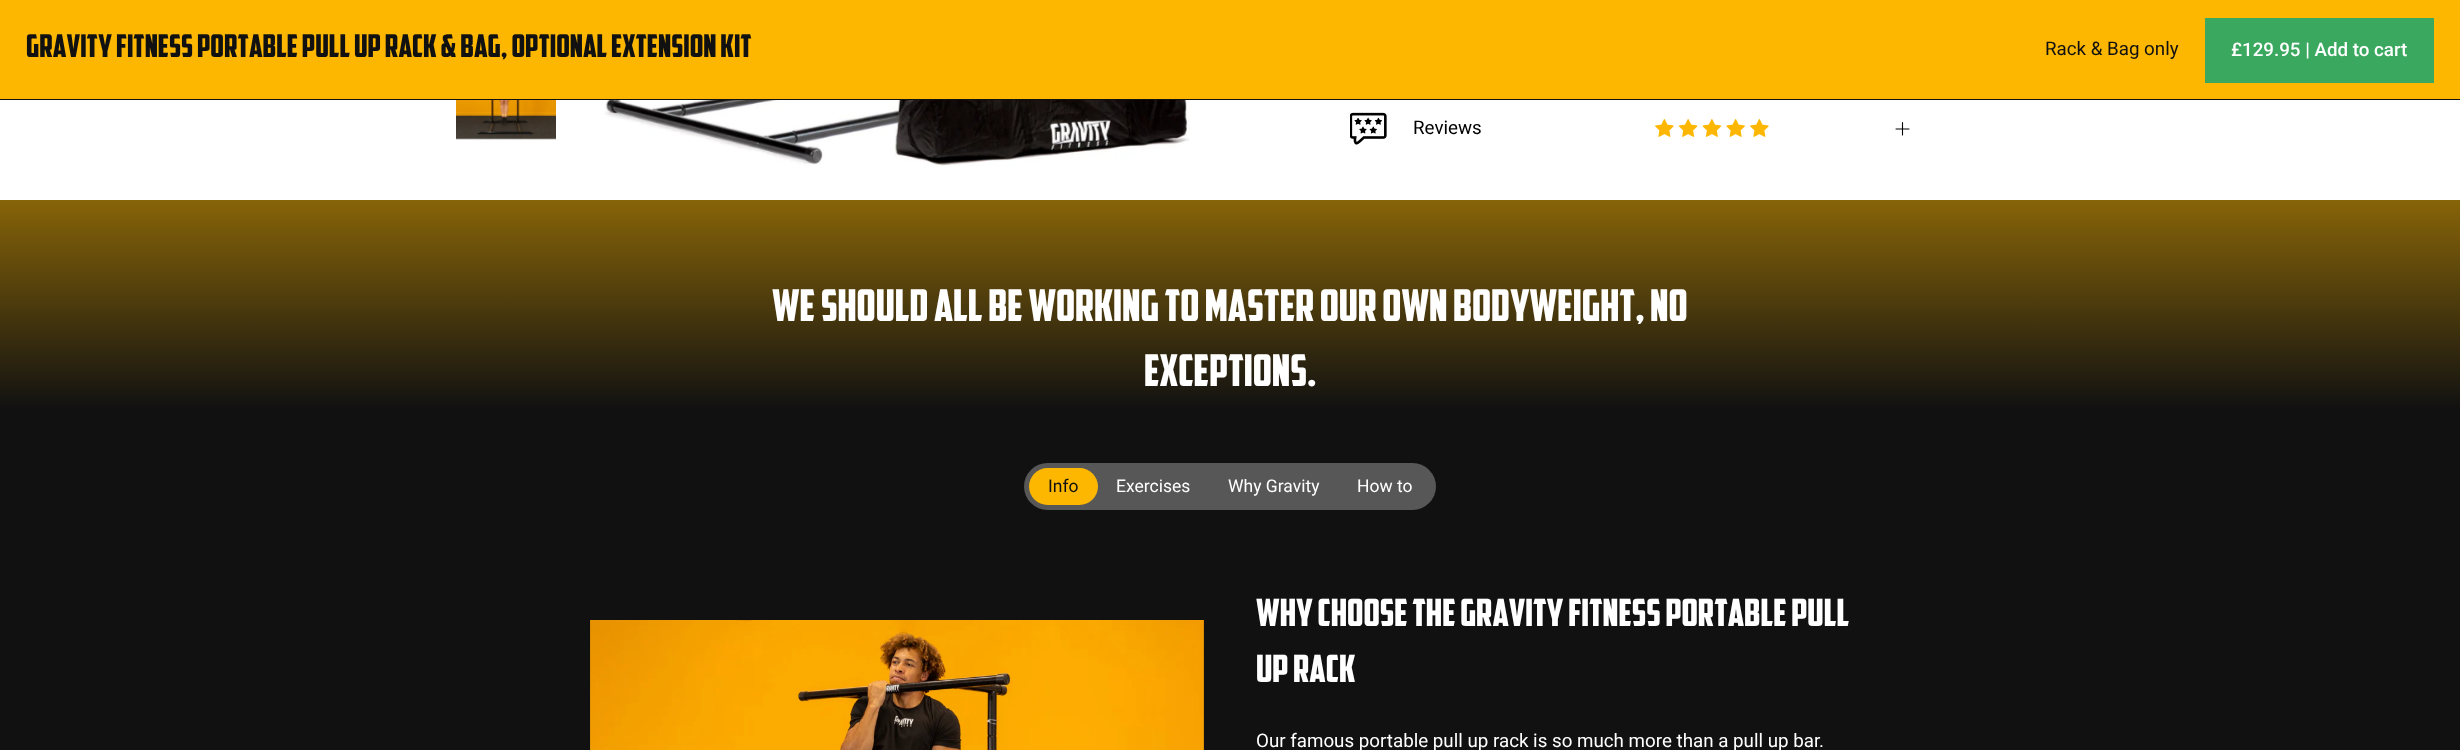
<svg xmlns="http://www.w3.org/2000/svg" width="2460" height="750">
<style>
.a{font:31.25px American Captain;fill:#111}
.b{font:18.75px Roboto;fill:#111}
.c{font:500 18.75px Roboto;fill:#fff}
.d{font:18.75px Roboto;fill:#000}
.e{font:43.75px American Captain;fill:#fff}
.f{font:17.5px Roboto;fill:#111}
.g{font:17.5px Roboto;fill:#fff}
.h{font:37.5px American Captain;fill:#fff}
.i{font:18.75px Roboto;fill:#fff}
</style>
<defs>
<linearGradient id="g1" gradientUnits="userSpaceOnUse" x1="1230" y1="468" x2="1230" y2="200"><stop offset="0.22" stop-color="#111"/><stop offset="1" stop-color="#111" stop-opacity="0.5"/></linearGradient>
</defs>
<rect width="100%" height="100%" fill="#fff"/>
<path fill="#fdb700" d="M0 0h2460v99H0z"/>
<path fill="#111" d="M0 99h2460v1H0z"/>
<path fill="#3ba85f" d="M2205 18h229v65H2205z"/>
<image href="1.png" x="456" y="100" width="100" height="40"/>
<image href="2.png" x="604" y="100" width="586" height="66"/>
<image href="3.png" x="1350" y="112" width="37" height="33"/>
<image href="4.png" x="1655" y="119" width="19" height="18"/>
<image href="5.png" x="1678" y="119" width="20" height="18"/>
<image href="6.png" x="1702" y="119" width="20" height="18"/>
<image href="7.png" x="1726" y="119" width="19" height="18"/>
<image href="4.png" x="1750" y="119" width="19" height="18"/>
<path fill="none" stroke="#000" stroke-width="1.1" stroke-linecap="round" d="M1909 129h-13m6.5 6v-12.5"/>
<path fill="#fdb700" d="M0 200h2460v207H0z"/>
<path fill="url(#g1)" d="M0 200h2460v263H0z"/>
<path fill="#111" d="M0 463h2460v287H0z"/>
<rect fill="#575757" x="1024" y="463" width="412" height="47" rx="23.5"/>
<rect fill="#fdb700" x="1029" y="468" width="69" height="37" rx="18.5"/>
<image href="8.png" x="590" y="620" width="614" height="130"/>
<text class="a" x="26" y="57">Gravity Fitness Portable Pull up Rack &amp; Bag, Optional Extension Kit</text>
<text class="b" x="2045" y="55">Rack &amp; Bag only</text>
<text class="c" x="2231" y="56">£129.95 | Add to cart</text>
<text class="d" x="1413" y="134">Reviews</text>
<text class="e" x="772" y="321">We should all be working to master our own bodyweight, no</text>
<text class="e" x="1144" y="386">exceptions.</text>
<text class="f" x="1048" y="492">Info</text>
<text class="g" x="1116" y="492">Exercises</text>
<text class="g" x="1228" y="492">Why Gravity</text>
<text class="g" x="1357" y="492">How to</text>
<text class="h" x="1256" y="626">Why choose the Gravity Fitness portable pull</text>
<text class="h" x="1256" y="682">up rack</text>
<text class="i" x="1256" y="747">Our famous portable pull up rack is so much more than a pull up bar.</text>
</svg>
